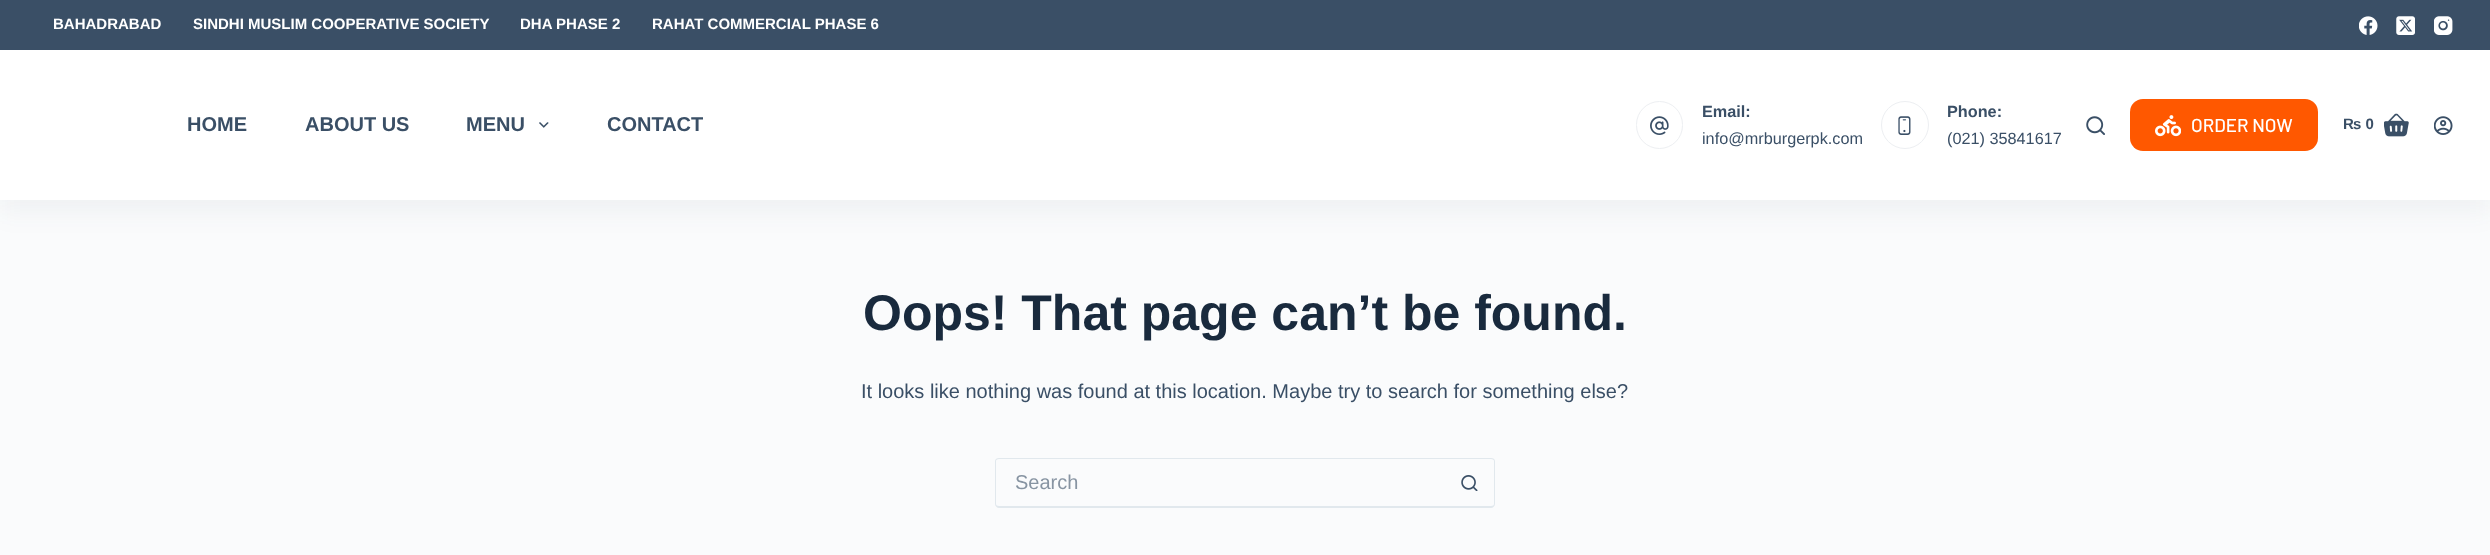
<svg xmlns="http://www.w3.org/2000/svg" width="2490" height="555">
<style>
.a{font:bold 15px Liberation Sans;fill:#fff}
.b{font:bold 20px Liberation Sans;fill:#3a4f66}
.c{font:bold 16.25px Liberation Sans;fill:#3a4f66}
.d{font:16.25px Liberation Sans;fill:#3a4f66}
.e{font:500 18.75px Barlow;fill:#fff}
.f{font:bold 15px Liberation Sans;fill:#3a4f66}
.g{font:bold 50px Liberation Sans;fill:#192a3d}
.h{font:20px Liberation Sans;fill:#3a4f66}
.i{font:20px Liberation Sans;fill:#8794a2}
</style>
<rect width="100%" height="100%" fill="#fafbfc"/>
<path fill="#2c3e500d" filter="blur(12.5px)" d="M0 63h2490v150H0z"/>
<path fill="#3a4f66" d="M0 0h2490v50H0z"/>
<image href="1.png" x="2359" y="16" width="19" height="19"/>
<image href="2.png" x="2396" y="16" width="19" height="19"/>
<image href="3.png" x="2434" y="16" width="19" height="19"/>
<path fill="#fff" d="M0 50h2490v150H0z"/>
<image href="4.png" x="539" y="122" width="10" height="6"/>
<rect fill="none" stroke="#edeff2" x="1636.5" y="101.5" width="46" height="47" rx="23"/>
<image href="5.png" x="1650" y="116" width="19" height="19"/>
<circle fill="none" stroke="#edeff2" cx="1905" cy="125" r="23.5"/>
<image href="6.png" x="1898" y="116" width="13" height="19"/>
<image href="7.png" x="2086" y="116" width="19" height="19"/>
<rect fill="#ff5800" x="2130" y="99" width="188" height="52" rx="13"/>
<image href="8.png" x="2155" y="115" width="26" height="22"/>
<image href="9.png" x="2384" y="113" width="25" height="24"/>
<image href="10.png" x="2434" y="116" width="19" height="19"/>
<path fill="#e1e8ed" fill-rule="evenodd" d="M999 458h446v50h-446c-2 0-4-2-4-4v-43c0-2 2-3 4-3zm0 1h446v47h-446c-2 0-3-1-3-2v-43c0-1 1-2 3-2z"/>
<path fill="#e1e8ed" fill-rule="evenodd" d="M1445 458h46c2 0 4 1 4 3v43c0 2-2 4-4 4h-46zm0 1h46c2 0 3 1 3 2v43c0 1-1 2-3 2h-46z"/>
<image href="11.png" x="1461" y="475" width="17" height="16"/>
<text class="a" x="53" y="29">BAHADRABAD</text>
<text class="a" x="193" y="29">SINDHI MUSLIM COOPERATIVE SOCIETY</text>
<text class="a" x="520" y="29">DHA PHASE 2</text>
<text class="a" x="652" y="29">RAHAT COMMERCIAL PHASE 6</text>
<text class="b" x="187" y="131">HOME</text>
<text class="b" x="305" y="131">ABOUT US</text>
<text class="b" x="466" y="131">MENU</text>
<text class="b" x="607" y="131">CONTACT</text>
<text class="c" x="1702" y="117">Email:</text>
<text class="d" x="1702" y="144">info@mrburgerpk.com</text>
<text class="c" x="1947" y="117">Phone:</text>
<text class="d" x="1947" y="144">(021) 35841617</text>
<text class="e" x="2191" y="132">ORDER NOW</text>
<text class="f" x="2343" y="129">₨ 0</text>
<text class="g" x="863" y="330">Oops! That page can’t be found.</text>
<text class="h" x="861" y="398">It looks like nothing was found at this location. Maybe try to search for something else?</text>
<text class="i" x="1015" y="489">Search</text>
</svg>
